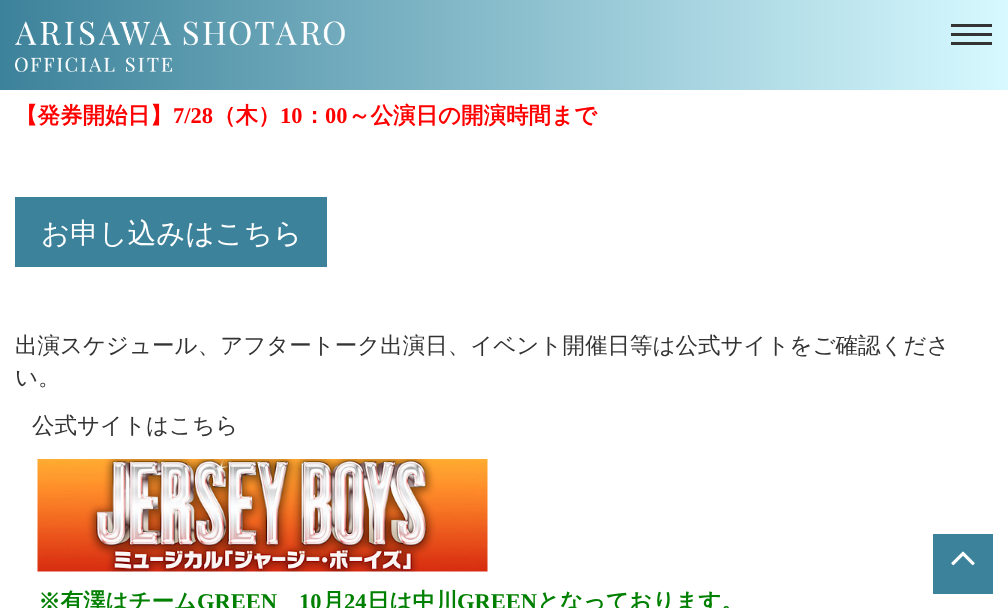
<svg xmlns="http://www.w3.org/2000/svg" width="1008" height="608">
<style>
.a{font:bold 22.5px WenQuanYi Zen Hei;fill:#f00}
.b{font:bold 22.5px Liberation Serif;fill:#f00}
.c{font:500 28.5px WenQuanYi Zen Hei;fill:#fff}
.d{font:500 22.5px WenQuanYi Zen Hei;fill:#333}
.e{font:bold 22.5px WenQuanYi Zen Hei;fill:#008000}
.f{font:bold 22.5px Liberation Serif;fill:#008000}
</style>
<defs>
<linearGradient id="g1" gradientUnits="userSpaceOnUse" x1="1008" y1="45" x2="0" y2="45"><stop offset="0" stop-color="#d7f9ff"/><stop offset="1" stop-color="#3c829a"/></linearGradient>
</defs>
<rect width="100%" height="100%" fill="#fff"/>
<path fill="url(#g1)" d="M0 0h1008v90H0z"/>
<image href="1.png" x="15" y="21" width="330" height="51"/>
<path fill="#333" d="M951 24h41v3H951z"/>
<path fill="#333" d="M951 33h41v3H951z"/>
<path fill="#333" d="M951 42h41v3H951z"/>
<path fill="#3c829a" d="M15 197h312v70H15z"/>
<image href="2.png" x="37" y="459" width="451" height="113"/>
<path fill="#3c829a" d="M933 534h60v60H933z"/>
<image href="3.png" x="951" y="551" width="24" height="15"/>
<text class="a" x="15" y="123">【発券開始日】</text>
<text class="b" x="173" y="123">7/28</text>
<text class="a" x="213" y="123">（木）</text>
<text class="b" x="280" y="123">10</text>
<text class="a" x="303" y="123">：</text>
<text class="b" x="325" y="123">00</text>
<text class="a" x="348" y="123">～公演日の開演時間まで</text>
<text class="c" x="41" y="243">お申し込みはこちら</text>
<text class="d" x="15" y="353">出演スケジュール、アフタートーク出演日、イベント開催日等は公式サイトをご確認くださ</text>
<text class="d" x="15" y="385">い。</text>
<text class="d" x="32" y="433">公式サイトはこちら</text>
<text class="e" x="38" y="609">※有澤はチーム</text>
<text class="f" x="197" y="609">GREEN</text>
<text class="f" x="299" y="609">10</text>
<text class="e" x="322" y="609">月</text>
<text class="f" x="344" y="609">24</text>
<text class="e" x="367" y="609">日は中川</text>
<text class="f" x="457" y="609">GREEN</text>
<text class="e" x="537" y="609">となっております。</text>
</svg>
